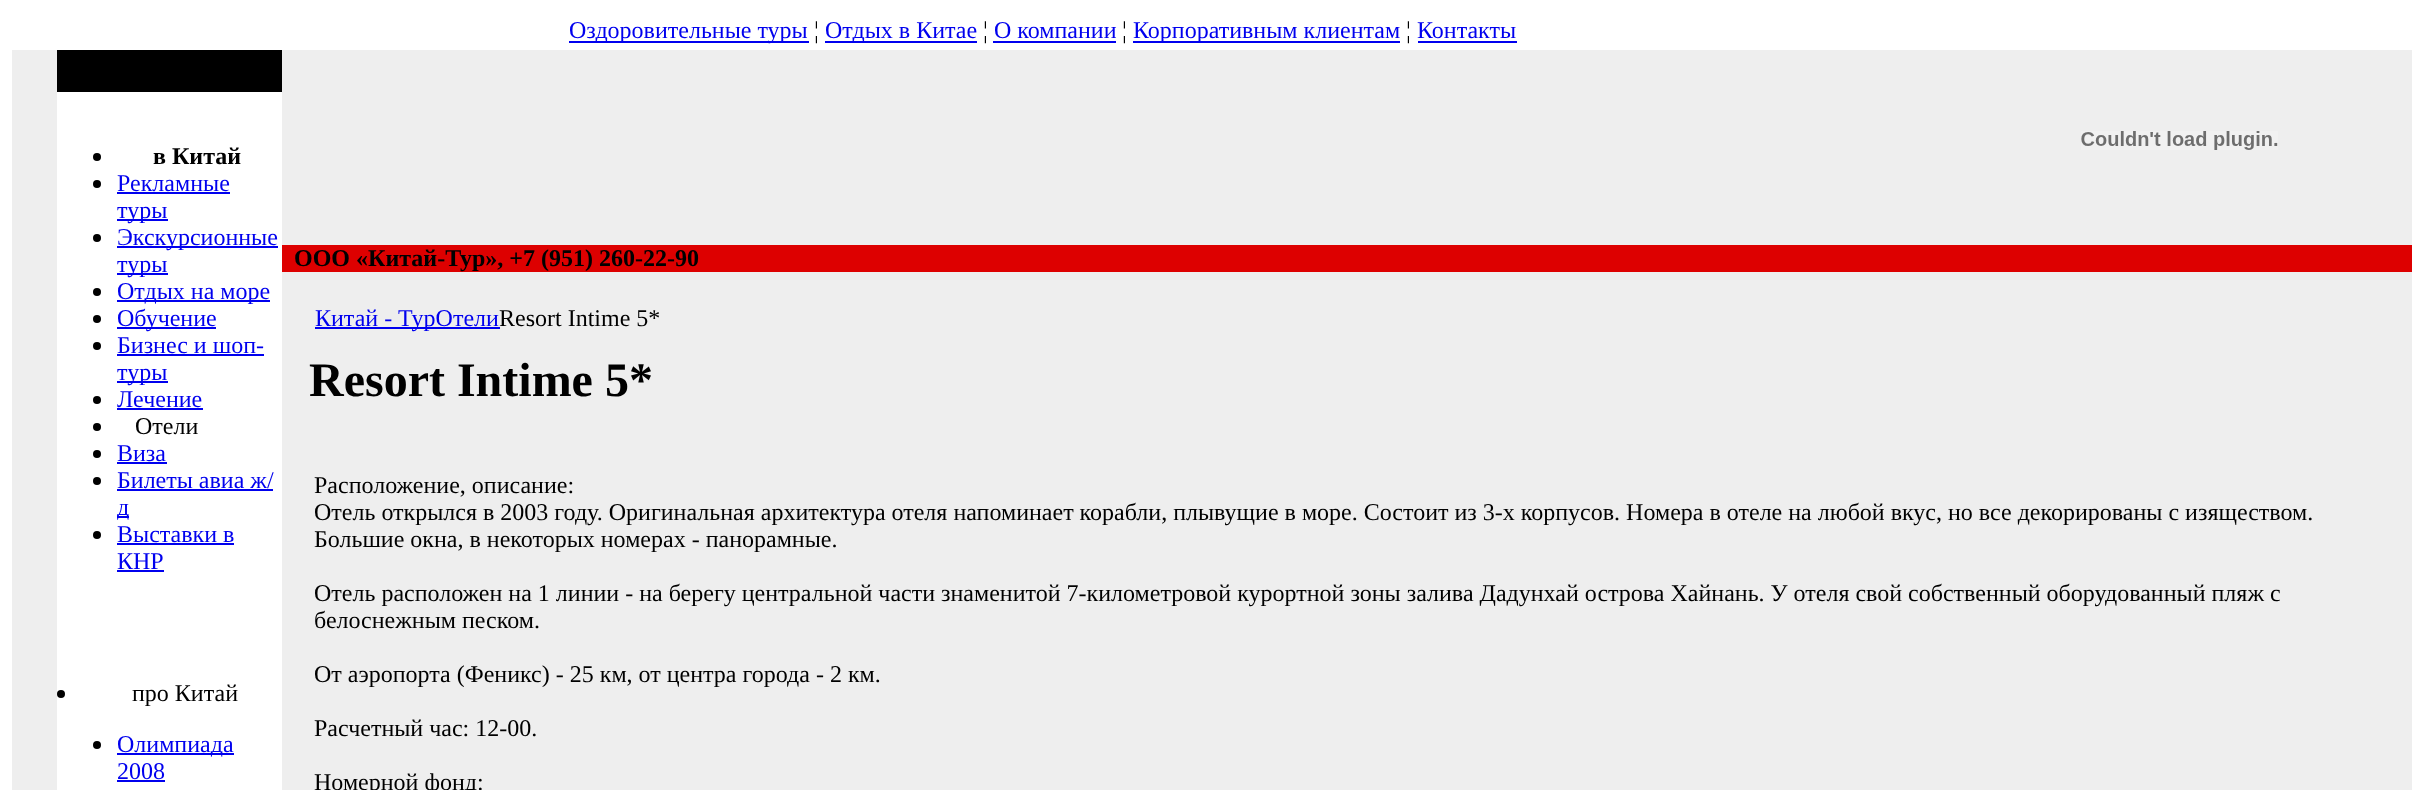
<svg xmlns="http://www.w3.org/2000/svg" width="2424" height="790">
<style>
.a{font:24px Liberation Serif;fill:#00e}
.b{font:24px Liberation Serif;fill:#000}
.c{font:bold 24px Liberation Serif;fill:#000}
.d{font:bold 48px Liberation Serif;fill:#000}
</style>
<rect width="100%" height="100%" fill="#fff"/>
<path fill="#00e" d="M569 41h240v2H569z"/>
<path fill="#00e" d="M825 41h152v2H825z"/>
<path fill="#00e" d="M993 41h123v2H993z"/>
<path fill="#00e" d="M1133 41h267v2H1133z"/>
<path fill="#00e" d="M1418 41h99v2H1418z"/>
<path fill="#eee" d="M12 50h45v740H12z"/>
<path fill="#000" d="M57 50h225v42H57z"/>
<circle fill="#000" cx="97" cy="157" r="4"/>
<circle fill="#000" cx="97" cy="184" r="4"/>
<path fill="#00e" d="M117 192h113v2H117z"/>
<path fill="#00e" d="M117 219h51v2H117z"/>
<circle fill="#000" cx="97" cy="238" r="4"/>
<path fill="#00e" d="M117 246h161v2H117z"/>
<path fill="#00e" d="M117 273h51v2H117z"/>
<circle fill="#000" cx="97" cy="292" r="4"/>
<path fill="#00e" d="M117 300h153v2H117z"/>
<circle fill="#000" cx="97" cy="319" r="4"/>
<path fill="#00e" d="M117 327h99v2H117z"/>
<circle fill="#000" cx="97" cy="346" r="4"/>
<path fill="#00e" d="M117 354h147v2H117z"/>
<path fill="#00e" d="M117 381h51v2H117z"/>
<circle fill="#000" cx="97" cy="400" r="4"/>
<path fill="#00e" d="M117 408h86v2H117z"/>
<circle fill="#000" cx="97" cy="427" r="4"/>
<circle fill="#000" cx="97" cy="454" r="4"/>
<path fill="#00e" d="M117 462h50v2H117z"/>
<circle fill="#000" cx="97" cy="481" r="4"/>
<path fill="#00e" d="M117 489h156v2H117z"/>
<path fill="#00e" d="M117 516h12v2H117z"/>
<circle fill="#000" cx="97" cy="535" r="4"/>
<path fill="#00e" d="M117 543h117v2H117z"/>
<path fill="#00e" d="M117 570h47v2H117z"/>
<circle fill="#000" cx="61" cy="694" r="4"/>
<circle fill="#000" cx="97" cy="745" r="4"/>
<path fill="#00e" d="M117 753h117v2H117z"/>
<path fill="#00e" d="M117 780h48v2H117z"/>
<path fill="#eee" d="M282 50h2130v740H282z"/>
<image href="1.png" x="2081" y="131" width="197" height="19"/>
<path fill="#d00" d="M282 245h2130v27H282z"/>
<path fill="#00e" d="M315 327h185v2H315z"/>
<text class="a" x="569" y="38">Оздоровительные туры</text>
<text class="b" x="814" y="38">¦</text>
<text class="a" x="825" y="38">Отдых в Китае</text>
<text class="b" x="983" y="38">¦</text>
<text class="a" x="994" y="38">О компании</text>
<text class="b" x="1122" y="38">¦</text>
<text class="a" x="1133" y="38">Корпоративным клиентам</text>
<text class="b" x="1406" y="38">¦</text>
<text class="a" x="1417" y="38">Контакты</text>
<text class="c" x="153" y="164">в Китай</text>
<text class="a" x="117" y="191">Рекламные</text>
<text class="a" x="117" y="218">туры</text>
<text class="a" x="117" y="245">Экскурсионные</text>
<text class="a" x="117" y="272">туры</text>
<text class="a" x="117" y="299">Отдых на море</text>
<text class="a" x="117" y="326">Обучение</text>
<text class="a" x="117" y="353">Бизнес и шоп-</text>
<text class="a" x="117" y="380">туры</text>
<text class="a" x="117" y="407">Лечение</text>
<text class="b" x="135" y="434">Отели</text>
<text class="a" x="117" y="461">Виза</text>
<text class="a" x="117" y="488">Билеты авиа ж/</text>
<text class="a" x="117" y="515">д</text>
<text class="a" x="117" y="542">Выставки в</text>
<text class="a" x="117" y="569">КНР</text>
<text class="b" x="132" y="701">про Китай</text>
<text class="a" x="117" y="752">Олимпиада</text>
<text class="a" x="117" y="779">2008</text>
<text class="c" x="294" y="266">ООО «Китай-Тур», +7 (951) 260-22-90</text>
<text class="a" x="315" y="326">Китай - ТурОтели</text>
<text class="b" x="499" y="326">Resort Intime 5*</text>
<text class="d" x="309" y="396">Resort Intime 5*</text>
<text class="b" x="314" y="493">Расположение, описание:</text>
<text class="b" x="314" y="520">Отель открылся в 2003 году. Оригинальная архитектура отеля напоминает корабли, плывущие в море. Состоит из 3-х корпусов. Номера в отеле на любой вкус, но все декорированы с изяществом.</text>
<text class="b" x="314" y="547">Большие окна, в некоторых номерах - панорамные.</text>
<text class="b" x="314" y="601">Отель расположен на 1 линии - на берегу центральной части знаменитой 7-километровой курортной зоны залива Дадунхай острова Хайнань. У отеля свой собственный оборудованный пляж с</text>
<text class="b" x="314" y="628">белоснежным песком.</text>
<text class="b" x="314" y="682">От аэропорта (Феникс) - 25 км, от центра города - 2 км.</text>
<text class="b" x="314" y="736">Расчетный час: 12-00.</text>
<text class="b" x="314" y="790">Номерной фонд:</text>
</svg>
